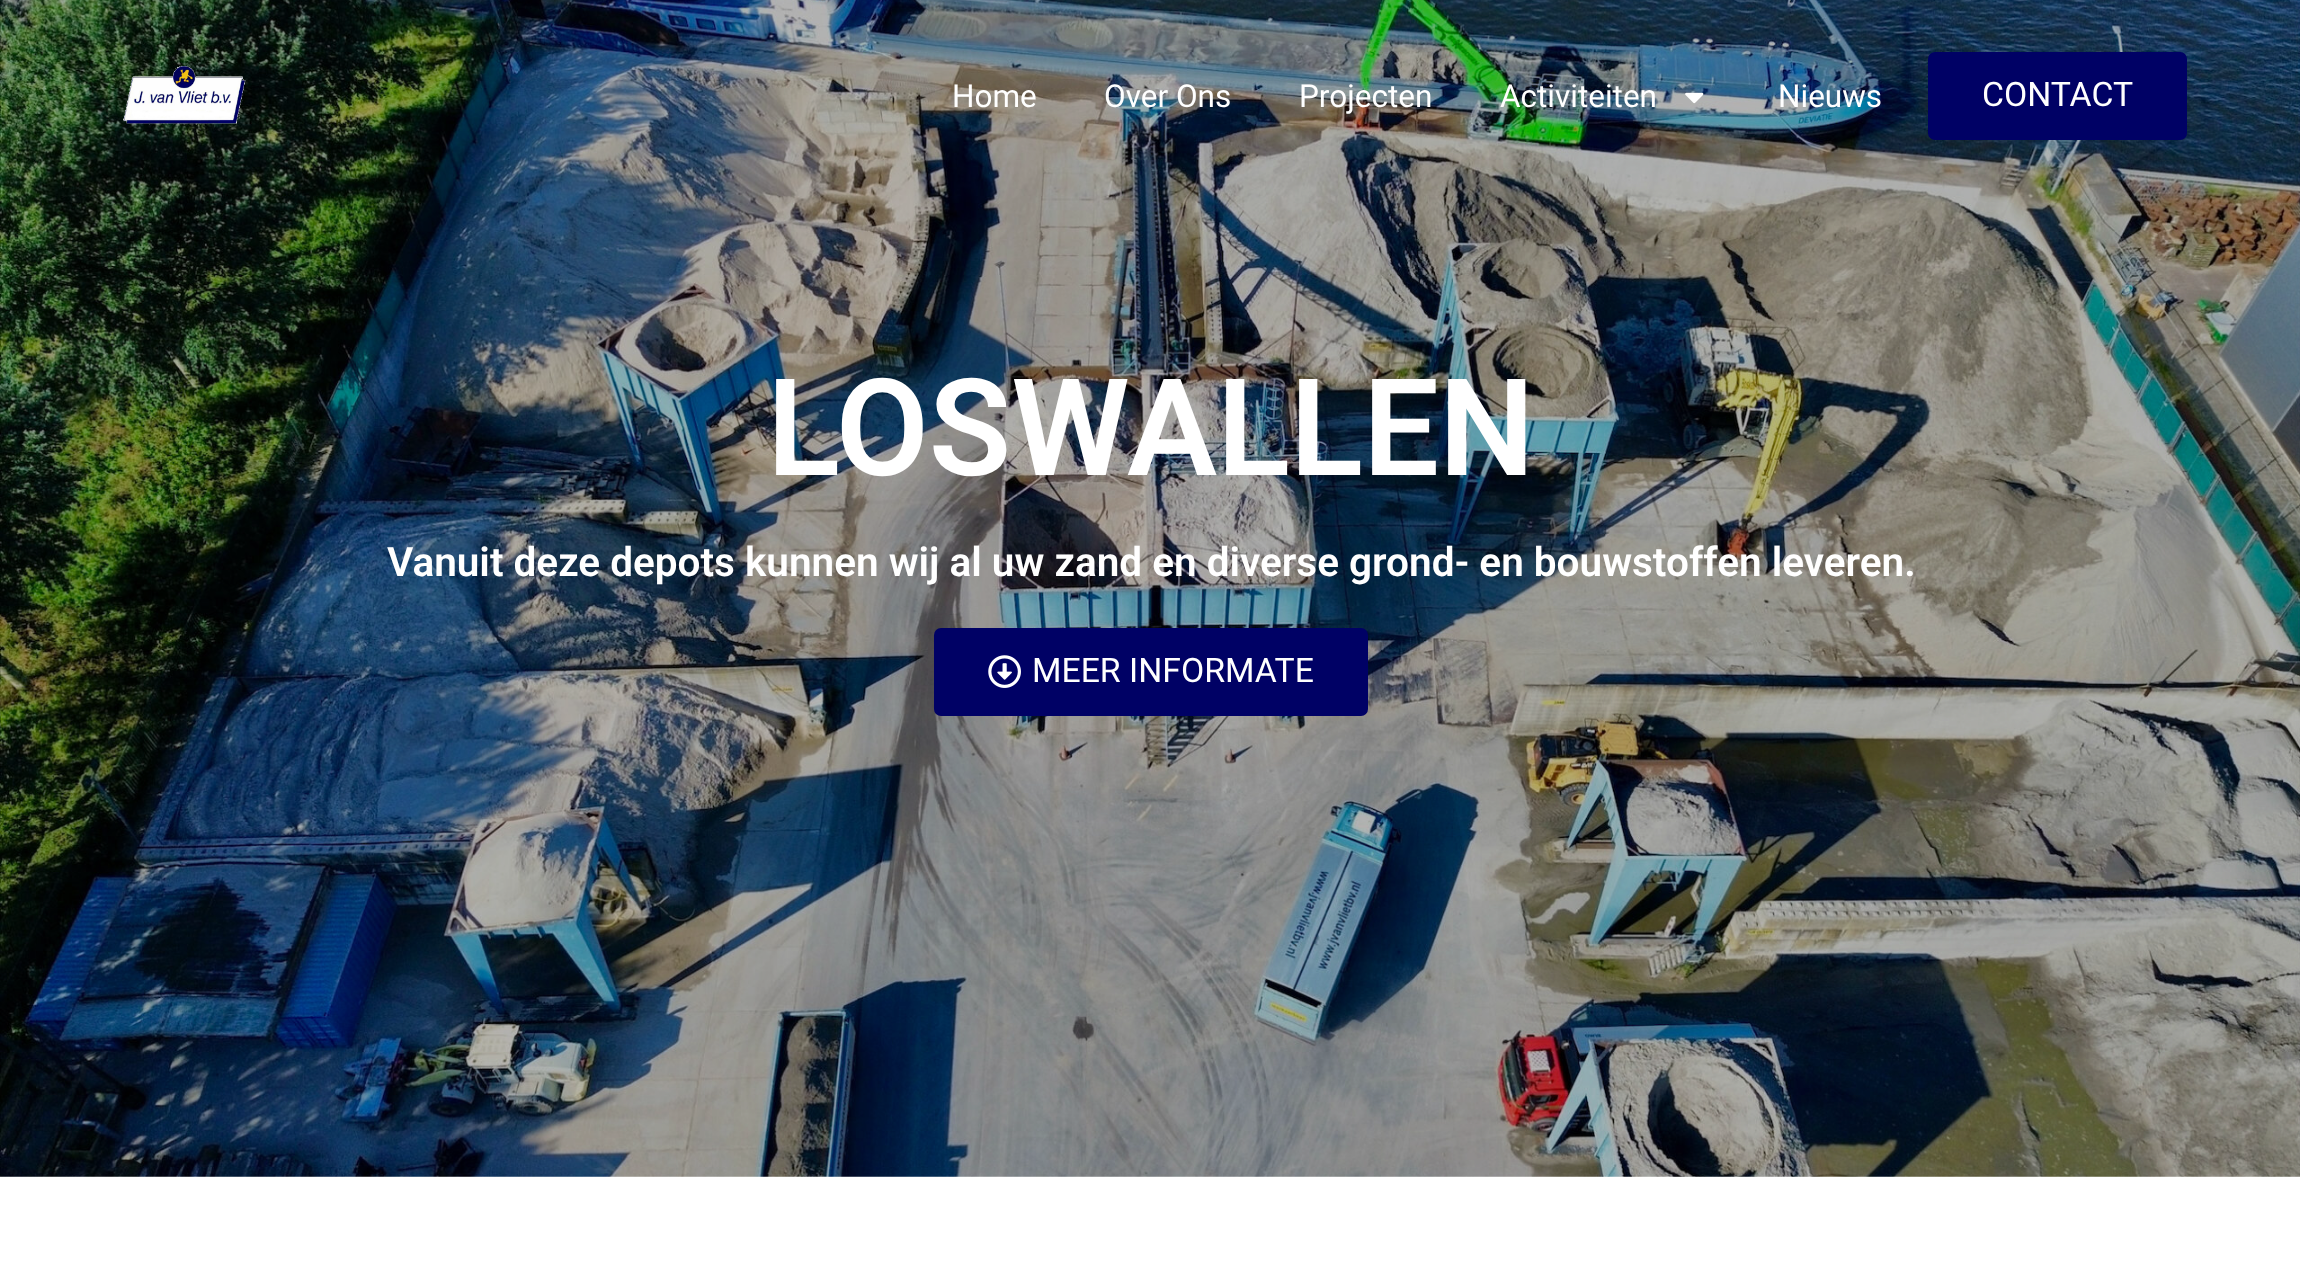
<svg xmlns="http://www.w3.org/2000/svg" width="2300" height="1274">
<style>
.a{font:31.5px Roboto;fill:#fff}
.b{font:33.75px Roboto;fill:#fff}
.c{font:600 135px Roboto;fill:#fff}
.d{font:600 40.5px Roboto;fill:#fff}
</style>
<rect width="100%" height="100%" fill="#fff"/>
<image href="3.png" x="0" y="0" width="2300" height="1177"/>
<image href="1.png" x="123" y="65" width="123" height="60"/>
<image href="2.png" x="1685" y="92" width="19" height="12"/>
<rect fill="#000165" x="1928" y="52" width="259" height="88" rx="7"/>
<rect fill="#000165" x="934" y="628" width="434" height="88" rx="7"/>
<image href="4.png" x="988" y="655" width="33" height="33"/>
<text class="a" x="952" y="107">Home</text>
<text class="a" x="1104" y="107">Over Ons</text>
<text class="a" x="1299" y="107">Projecten</text>
<text class="a" x="1500" y="107">Activiteiten</text>
<text class="a" x="1778" y="107">Nieuws</text>
<text class="b" x="1982" y="106">CONTACT</text>
<text class="c" x="767" y="475">LOSWALLEN</text>
<text class="d" x="387" y="576">Vanuit deze depots kunnen wij al uw zand en diverse grond- en bouwstoffen leveren.</text>
<text class="b" x="1032" y="682">MEER INFORMATE</text>
</svg>
